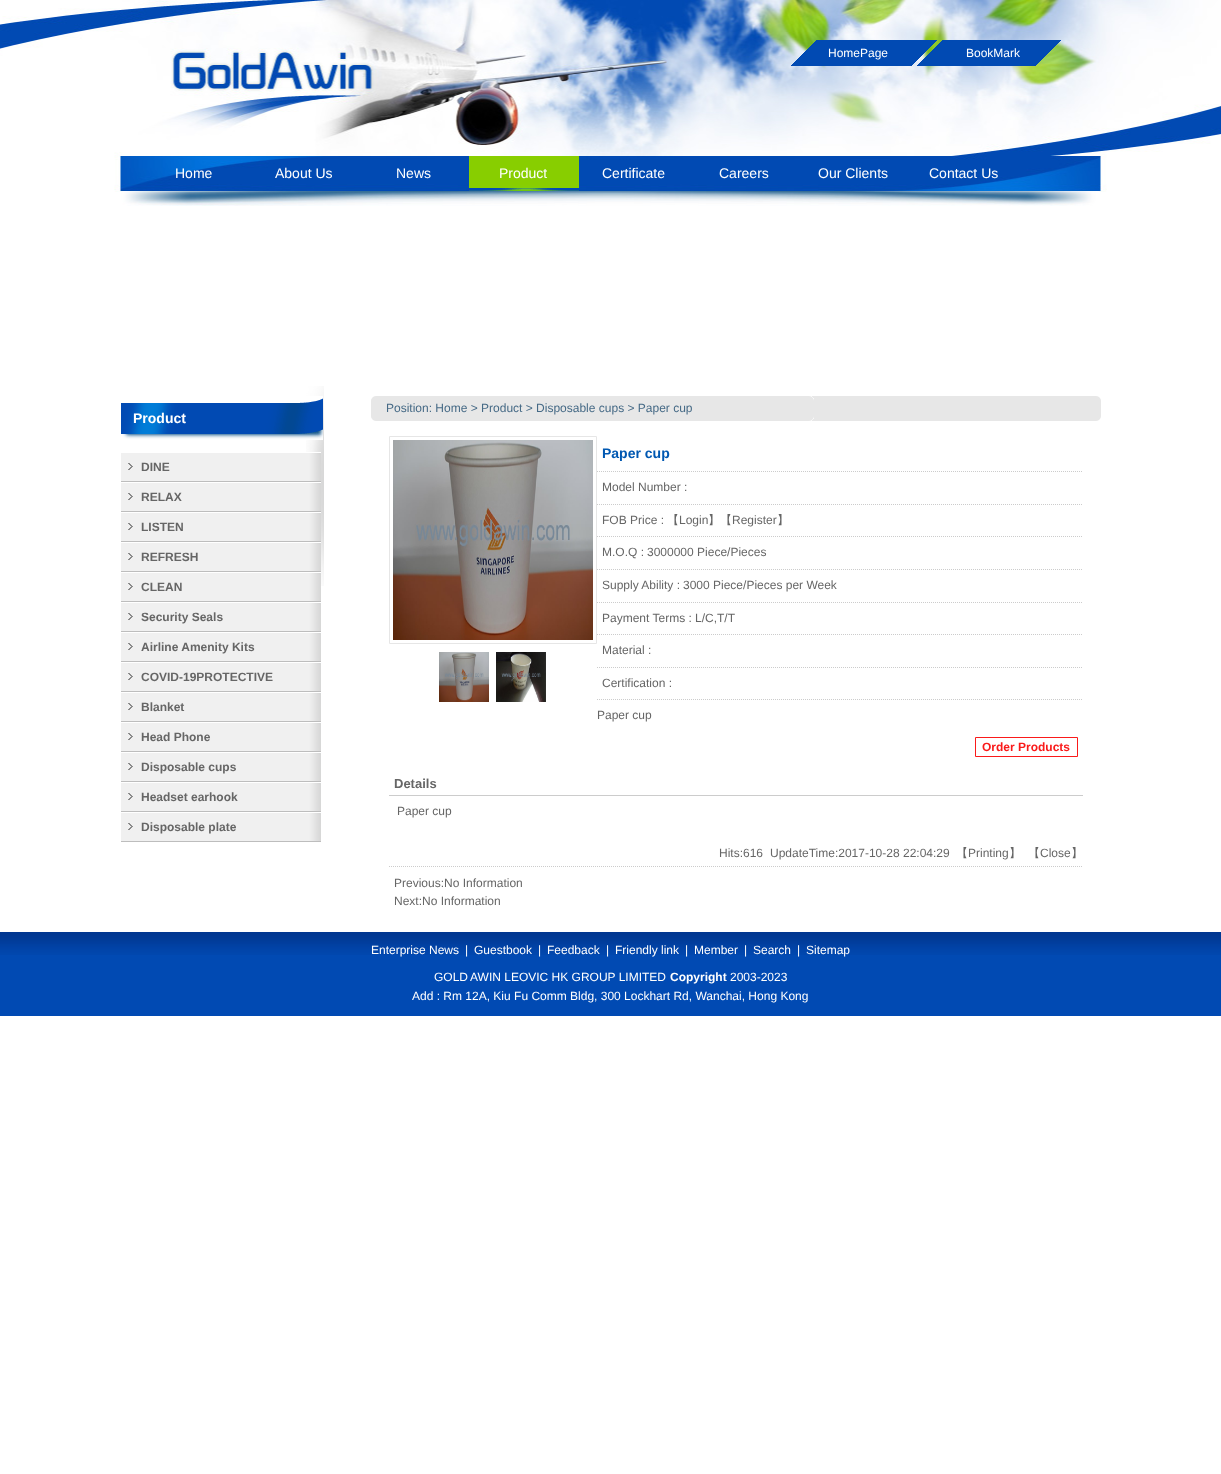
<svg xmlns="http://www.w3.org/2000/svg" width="1221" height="1474">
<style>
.a{font:12px Liberation Sans;fill:#fff}
.b{font:14px Liberation Sans;fill:#fff}
.c{font:bold 14px Liberation Sans;fill:#fff}
.d{font:bold 12px Liberation Sans;fill:#666}
.e{font:12px Liberation Sans;fill:#466a86}
.f{font:bold 14px Liberation Sans;fill:#0058b2}
.g{font:12px Liberation Sans;fill:#666}
.h{font:500 12px WenQuanYi Zen Hei;fill:#666}
.i{font:bold 12px Liberation Sans;fill:#fa1a1a}
.j{font:bold 13px Liberation Sans;fill:#666}
.k{font:bold 12px Liberation Sans;fill:#fff}
</style>
<rect width="100%" height="100%" fill="#fff"/>
<image href="1.png" x="0" y="0" width="1221" height="206"/>
<image href="2.png" x="791" y="40" width="270" height="26"/>
<image href="3.png" x="469" y="156" width="110" height="35"/>
<image href="4.png" x="306" y="386" width="18" height="200"/>
<image href="5.png" x="121" y="396" width="202" height="44"/>
<image href="6.png" x="121" y="452" width="200" height="30"/>
<image href="6.png" x="121" y="482" width="200" height="30"/>
<image href="6.png" x="121" y="512" width="200" height="30"/>
<image href="6.png" x="121" y="542" width="200" height="30"/>
<image href="6.png" x="121" y="572" width="200" height="30"/>
<image href="7.png" x="121" y="603" width="200" height="29"/>
<image href="7.png" x="121" y="633" width="200" height="29"/>
<image href="7.png" x="121" y="663" width="200" height="29"/>
<image href="7.png" x="121" y="693" width="200" height="29"/>
<image href="7.png" x="121" y="723" width="200" height="29"/>
<image href="7.png" x="121" y="753" width="200" height="29"/>
<image href="7.png" x="121" y="783" width="200" height="29"/>
<image href="7.png" x="121" y="813" width="200" height="29"/>
<image href="8.png" x="812" y="396" width="289" height="25"/>
<image href="9.png" x="371" y="396" width="443" height="25"/>
<path fill="none" stroke="#e6e6e6" d="M389.5 436.5h207v207H389.5z"/>
<image href="10.png" x="393" y="440" width="200" height="200"/>
<image href="11.png" x="439" y="652" width="50" height="50"/>
<image href="12.png" x="496" y="652" width="50" height="50"/>
<path fill="none" stroke="#ccc" stroke-dasharray="1 1" d="M597 471.5h486"/>
<path fill="none" stroke="#ccc" stroke-dasharray="1 1" d="M597 504.5h486"/>
<path fill="none" stroke="#ccc" stroke-dasharray="1 1" d="M597 536.5h486"/>
<path fill="none" stroke="#ccc" stroke-dasharray="1 1" d="M597 569.5h486"/>
<path fill="none" stroke="#ccc" stroke-dasharray="1 1" d="M597 602.5h486"/>
<path fill="none" stroke="#ccc" stroke-dasharray="1 1" d="M597 634.5h486"/>
<path fill="none" stroke="#ccc" stroke-dasharray="1 1" d="M597 667.5h486"/>
<path fill="none" stroke="#ccc" stroke-dasharray="1 1" d="M597 699.5h486"/>
<path fill="none" stroke="#fa1a1a" d="M975.5 737.5h102v19H975.5z"/>
<path fill="#ccc" d="M389 795h694v1H389z"/>
<path fill="none" stroke="#ccc" stroke-dasharray="1 1" d="M389 866.5h694"/>
<path fill="#014ab3" d="M0 955h1221v61H0z"/>
<image href="13.png" x="0" y="932" width="1221" height="23"/>
<text class="a" x="828" y="57">HomePage</text>
<text class="a" x="966" y="57">BookMark</text>
<text class="b" x="175" y="178">Home</text>
<text class="b" x="275" y="178">About Us</text>
<text class="b" x="396" y="178">News</text>
<text class="b" x="499" y="178">Product</text>
<text class="b" x="602" y="178">Certificate</text>
<text class="b" x="719" y="178">Careers</text>
<text class="b" x="818" y="178">Our Clients</text>
<text class="b" x="929" y="178">Contact Us</text>
<text class="c" x="133" y="423">Product</text>
<text class="d" x="141" y="471">DINE</text>
<text class="d" x="141" y="501">RELAX</text>
<text class="d" x="141" y="531">LISTEN</text>
<text class="d" x="141" y="561">REFRESH</text>
<text class="d" x="141" y="591">CLEAN</text>
<text class="d" x="141" y="621">Security Seals</text>
<text class="d" x="141" y="651">Airline Amenity Kits</text>
<text class="d" x="141" y="681">COVID-19PROTECTIVE</text>
<text class="d" x="141" y="711">Blanket</text>
<text class="d" x="141" y="741">Head Phone</text>
<text class="d" x="141" y="771">Disposable cups</text>
<text class="d" x="141" y="801">Headset earhook</text>
<text class="d" x="141" y="831">Disposable plate</text>
<text class="e" x="386" y="412">Position: Home &gt; Product &gt; Disposable cups &gt; Paper cup</text>
<text class="f" x="602" y="458">Paper cup</text>
<text class="g" x="602" y="491">Model Number :</text>
<text class="g" x="602" y="524">FOB Price :</text>
<text class="h" x="667" y="524">【</text>
<text class="g" x="679" y="524">Login</text>
<text class="h" x="708" y="524">】【</text>
<text class="g" x="732" y="524">Register</text>
<text class="h" x="777" y="524">】</text>
<text class="g" x="602" y="556">M.O.Q :</text>
<text class="g" x="647" y="556">3000000 Piece/Pieces</text>
<text class="g" x="602" y="589">Supply Ability :</text>
<text class="g" x="683" y="589">3000 Piece/Pieces per Week</text>
<text class="g" x="602" y="622">Payment Terms :</text>
<text class="g" x="695" y="622">L/C,T/T</text>
<text class="g" x="602" y="654">Material :</text>
<text class="g" x="602" y="687">Certification :</text>
<text class="g" x="597" y="719">Paper cup</text>
<text class="i" x="982" y="751">Order Products</text>
<text class="j" x="394" y="788">Details</text>
<text class="g" x="397" y="815">Paper cup</text>
<text class="g" x="719" y="857">Hits:616</text>
<text class="g" x="770" y="857">UpdateTime:2017-10-28 22:04:29</text>
<text class="h" x="956" y="857">【</text>
<text class="g" x="968" y="857">Printing</text>
<text class="h" x="1009" y="857">】</text>
<text class="h" x="1028" y="857">【</text>
<text class="g" x="1040" y="857">Close</text>
<text class="h" x="1071" y="857">】</text>
<text class="g" x="394" y="887">Previous:No Information</text>
<text class="g" x="394" y="905">Next:No Information</text>
<text class="a" x="371" y="954">Enterprise News</text>
<text class="a" x="465" y="954">|</text>
<text class="a" x="474" y="954">Guestbook</text>
<text class="a" x="538" y="954">|</text>
<text class="a" x="547" y="954">Feedback</text>
<text class="a" x="606" y="954">|</text>
<text class="a" x="615" y="954">Friendly link</text>
<text class="a" x="685" y="954">|</text>
<text class="a" x="694" y="954">Member</text>
<text class="a" x="744" y="954">|</text>
<text class="a" x="753" y="954">Search</text>
<text class="a" x="797" y="954">|</text>
<text class="a" x="806" y="954">Sitemap</text>
<text class="a" x="434" y="981">GOLD</text>
<text class="a" x="470" y="981">AWIN LEOVIC HK GROUP LIMITED</text>
<text class="k" x="670" y="981">Copyright</text>
<text class="a" x="730" y="981">2003-2023</text>
<text class="a" x="412" y="1000">Add : Rm 12A, Kiu Fu Comm Bldg, 300 Lockhart Rd, Wanchai, Hong Kong</text>
</svg>
